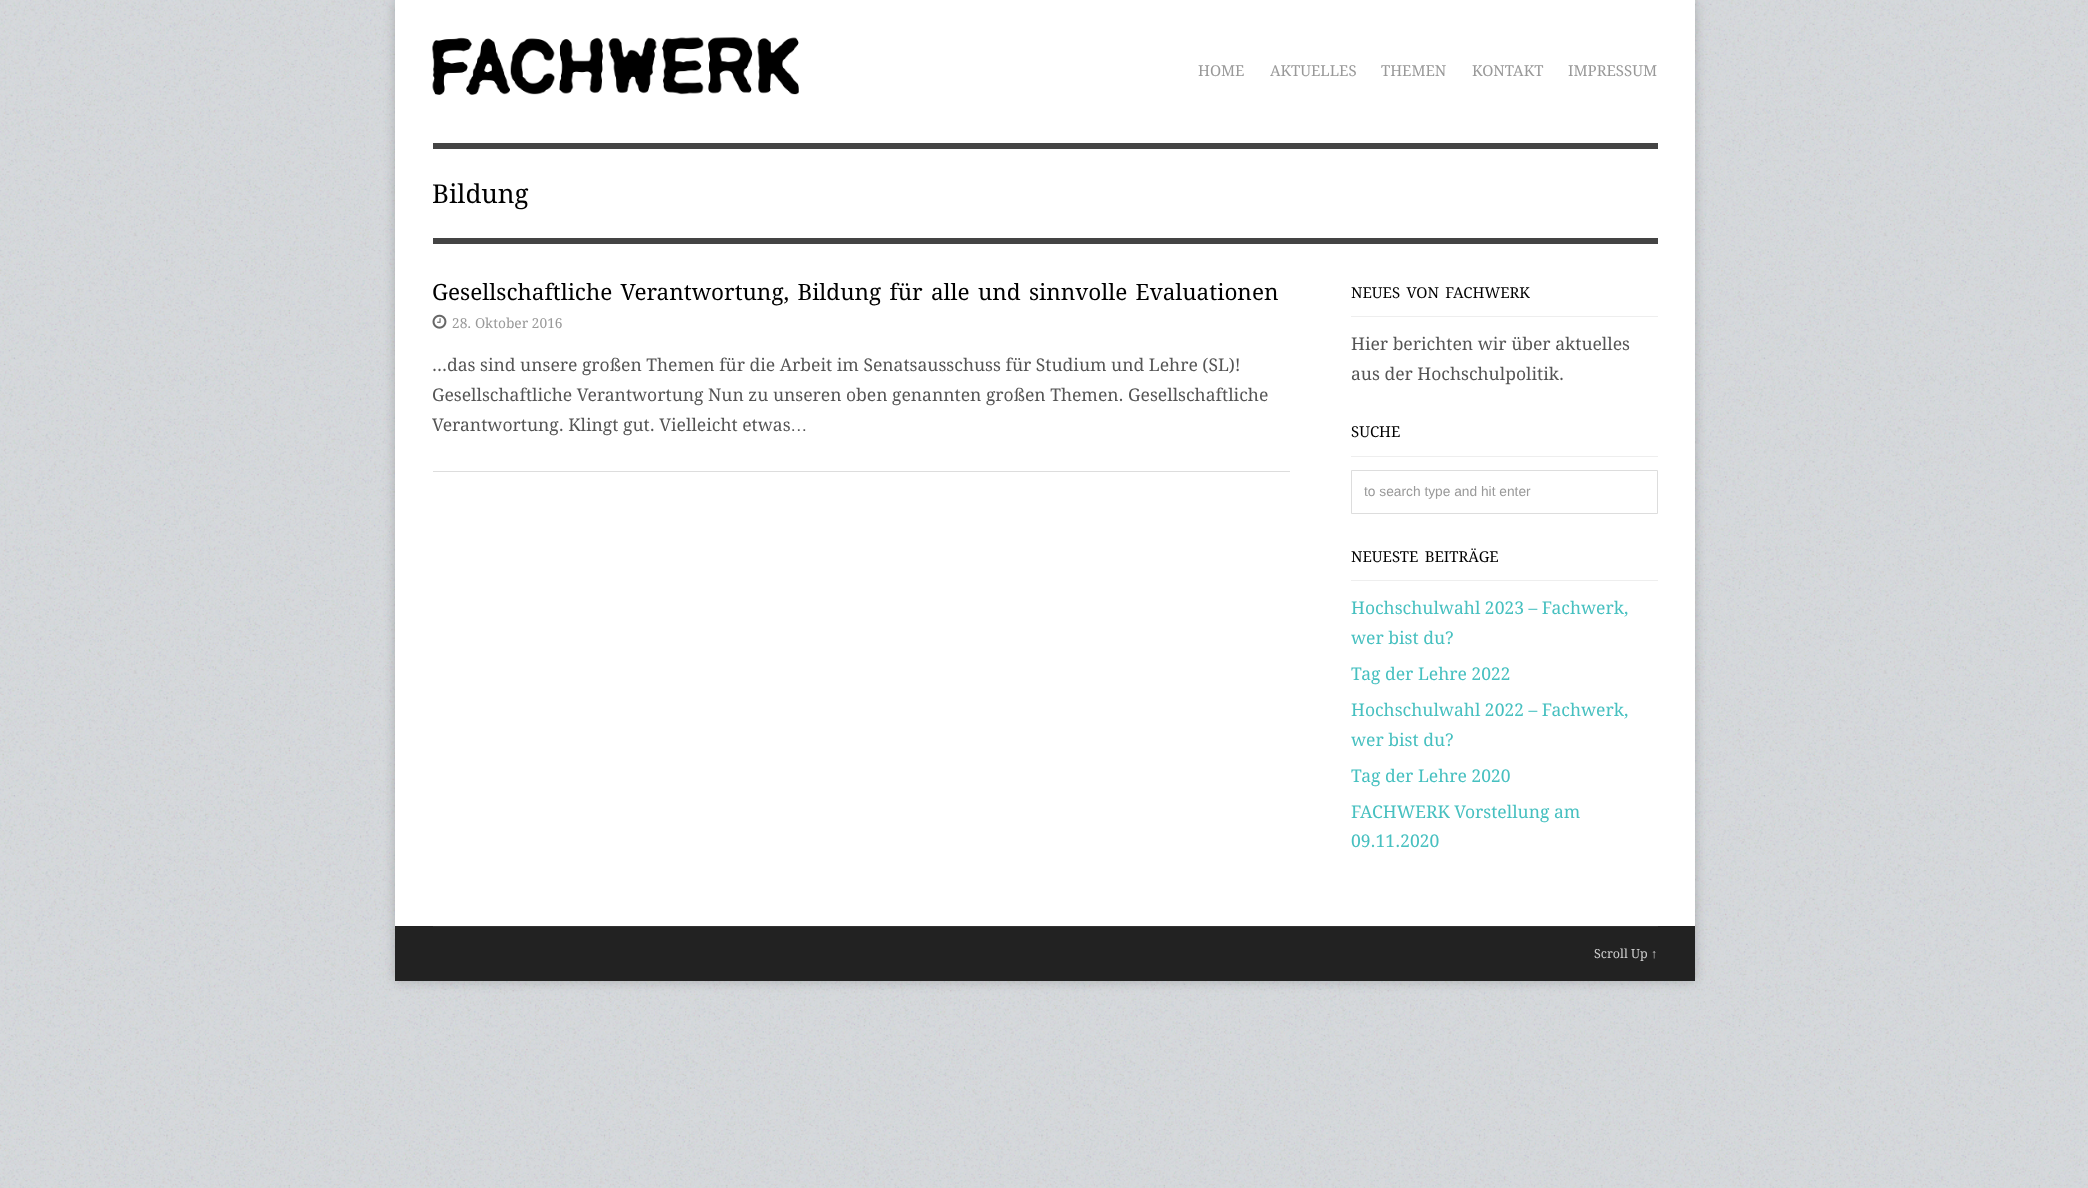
<svg xmlns="http://www.w3.org/2000/svg" width="2088" height="1188">
<style>
.a{font:15px Droid Serif;fill:#999}
.b{font:26px Droid Serif;fill:#000}
.c{font:22.5px Droid Serif;fill:#000}
.d{font:13.75px Droid Serif;fill:#999}
.e{font:17.5px Droid Serif;fill:#555}
.f{font:17.5px Liberation Sans;fill:#555}
.g{font:15px Droid Serif;fill:#000}
.h{font:13.75px Liberation Sans;fill:#999}
.i{font:17.5px Droid Serif;fill:#47c0c0}
.j{font:12.5px Droid Serif;fill:#ccc}
.k{font:12.5px Liberation Sans;fill:#ccc}
</style>
<rect width="100%" height="100%" fill="#fff"/>
<image href="1.png" x="0" y="0" width="2088" height="1188"/>
<path fill="#00000033" filter="blur(6px)" d="M395 0h1300v981H395z"/>
<path fill="#fff" d="M395 0h1300v926H395z"/>
<path fill="#444" d="M433 143h1225v6H433z"/>
<image href="2.png" x="432" y="37" width="367" height="58"/>
<path fill="#444" d="M433 238h1225v6H433z"/>
<path fill="#ddd" d="M433 471h857v1H433z"/>
<image href="3.png" x="432" y="314" width="15" height="15"/>
<path fill="#eee" d="M1351 316h307v1H1351z"/>
<path fill="#eee" d="M1351 456h307v1H1351z"/>
<path fill="none" stroke="#ddd" d="M1351.5 470.5h306v43H1351.5z"/>
<path fill="#eee" d="M1351 580h307v1H1351z"/>
<path fill="#222" d="M395 926h1300v55H395z"/>
<path fill="#333" d="M433 926h1225v1H433z"/>
<text class="a" x="1198" y="76">HOME</text>
<text class="a" x="1270" y="76">AKTUELLES</text>
<text class="a" x="1381" y="76">THEMEN</text>
<text class="a" x="1472" y="76">KONTAKT</text>
<text class="a" x="1568" y="76">IMPRESSUM</text>
<text class="b" x="432" y="203">Bildung</text>
<text class="c" x="432" y="300" word-spacing="2.5">Gesellschaftliche Verantwortung, Bildung für alle und sinnvolle Evaluationen</text>
<text class="d" x="452" y="328">28. Oktober 2016</text>
<text class="e" x="432" y="371">...das sind unsere großen Themen für die Arbeit im Senatsausschuss für Studium und Lehre (SL)!</text>
<text class="e" x="432" y="401">Gesellschaftliche Verantwortung Nun zu unseren oben genannten großen Themen. Gesellschaftliche</text>
<text class="e" x="432" y="431">Verantwortung. Klingt gut. Vielleicht etwas</text>
<text class="f" x="790" y="431">…</text>
<text class="g" x="1351" y="298" word-spacing="2.5">NEUES VON FACHWERK</text>
<text class="e" x="1351" y="350">Hier berichten wir über aktuelles</text>
<text class="e" x="1351" y="380">aus der Hochschulpolitik.</text>
<text class="g" x="1351" y="437">SUCHE</text>
<text class="h" x="1364" y="496">to search type and hit enter</text>
<text class="g" x="1351" y="562" word-spacing="2.5">NEUESTE BEITRÄGE</text>
<text class="i" x="1351" y="614">Hochschulwahl 2023 – Fachwerk,</text>
<text class="i" x="1351" y="644">wer bist du?</text>
<text class="i" x="1351" y="680">Tag der Lehre 2022</text>
<text class="i" x="1351" y="716">Hochschulwahl 2022 – Fachwerk,</text>
<text class="i" x="1351" y="746">wer bist du?</text>
<text class="i" x="1351" y="782">Tag der Lehre 2020</text>
<text class="i" x="1351" y="818">FACHWERK Vorstellung am</text>
<text class="i" x="1351" y="847">09.11.2020</text>
<text class="j" x="1594" y="958">Scroll Up</text>
<text class="k" x="1651" y="958">↑</text>
</svg>
